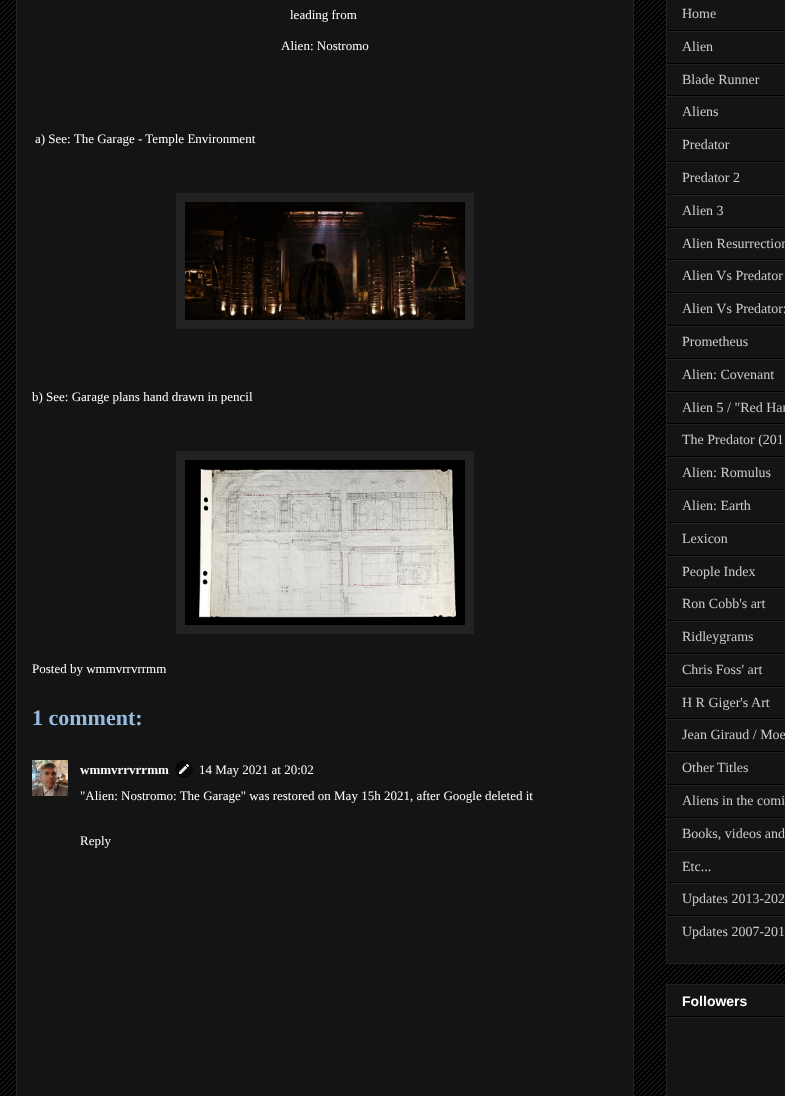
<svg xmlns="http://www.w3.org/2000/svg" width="785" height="1096">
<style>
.a{font:13px Liberation Serif;fill:#fff}
.b{font:bold 22px Liberation Serif;fill:#96bcdf}
.c{font:bold 13px Liberation Serif;fill:#fff}
.d{font:14px Liberation Serif;fill:#ccc}
.e{font:bold 14px Liberation Sans;fill:#fff}
</style>
<rect width="100%" height="100%" fill="#000"/>
<image href="1.png" x="0" y="0" width="785" height="1096"/>
<path fill="#141414" stroke="#222" d="M16.5 -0.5h617v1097H16.5z"/>
<path fill="#222" d="M176 193h298v136H176z"/>
<image href="2.png" x="185" y="202" width="280" height="118"/>
<path fill="#222" d="M176 451h298v183H176z"/>
<image href="3.png" x="185" y="460" width="280" height="165"/>
<image href="4.png" x="32" y="760" width="36" height="36"/>
<image href="5.png" x="175" y="760" width="18" height="18"/>
<path fill="#141414" stroke="#222" d="M666.5 -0.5h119v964H666.5z"/>
<path fill="#000" d="M667 30h118v1H667z"/>
<path fill="#222" d="M667 31h118v1H667z"/>
<path fill="#000" d="M667 63h118v1H667z"/>
<path fill="#222" d="M667 64h118v1H667z"/>
<path fill="#000" d="M667 95h118v1H667z"/>
<path fill="#222" d="M667 96h118v1H667z"/>
<path fill="#000" d="M667 128h118v1H667z"/>
<path fill="#222" d="M667 129h118v1H667z"/>
<path fill="#000" d="M667 161h118v1H667z"/>
<path fill="#222" d="M667 162h118v1H667z"/>
<path fill="#000" d="M667 194h118v1H667z"/>
<path fill="#222" d="M667 195h118v1H667z"/>
<path fill="#000" d="M667 227h118v1H667z"/>
<path fill="#222" d="M667 228h118v1H667z"/>
<path fill="#000" d="M667 259h118v1H667z"/>
<path fill="#222" d="M667 260h118v1H667z"/>
<path fill="#000" d="M667 292h118v1H667z"/>
<path fill="#222" d="M667 293h118v1H667z"/>
<path fill="#000" d="M667 325h118v1H667z"/>
<path fill="#222" d="M667 326h118v1H667z"/>
<path fill="#000" d="M667 358h118v1H667z"/>
<path fill="#222" d="M667 359h118v1H667z"/>
<path fill="#000" d="M667 391h118v1H667z"/>
<path fill="#222" d="M667 392h118v1H667z"/>
<path fill="#000" d="M667 423h118v1H667z"/>
<path fill="#222" d="M667 424h118v1H667z"/>
<path fill="#000" d="M667 456h118v1H667z"/>
<path fill="#222" d="M667 457h118v1H667z"/>
<path fill="#000" d="M667 489h118v1H667z"/>
<path fill="#222" d="M667 490h118v1H667z"/>
<path fill="#000" d="M667 522h118v1H667z"/>
<path fill="#222" d="M667 523h118v1H667z"/>
<path fill="#000" d="M667 555h118v1H667z"/>
<path fill="#222" d="M667 556h118v1H667z"/>
<path fill="#000" d="M667 587h118v1H667z"/>
<path fill="#222" d="M667 588h118v1H667z"/>
<path fill="#000" d="M667 620h118v1H667z"/>
<path fill="#222" d="M667 621h118v1H667z"/>
<path fill="#000" d="M667 653h118v1H667z"/>
<path fill="#222" d="M667 654h118v1H667z"/>
<path fill="#000" d="M667 686h118v1H667z"/>
<path fill="#222" d="M667 687h118v1H667z"/>
<path fill="#000" d="M667 718h118v1H667z"/>
<path fill="#222" d="M667 719h118v1H667z"/>
<path fill="#000" d="M667 751h118v1H667z"/>
<path fill="#222" d="M667 752h118v1H667z"/>
<path fill="#000" d="M667 784h118v1H667z"/>
<path fill="#222" d="M667 785h118v1H667z"/>
<path fill="#000" d="M667 817h118v1H667z"/>
<path fill="#222" d="M667 818h118v1H667z"/>
<path fill="#000" d="M667 850h118v1H667z"/>
<path fill="#222" d="M667 851h118v1H667z"/>
<path fill="#000" d="M667 882h118v1H667z"/>
<path fill="#222" d="M667 883h118v1H667z"/>
<path fill="#000" d="M667 915h118v1H667z"/>
<path fill="#222" d="M667 916h118v1H667z"/>
<path fill="#141414" stroke="#222" d="M666.5 984.5h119v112H666.5z"/>
<path fill="#000" d="M667 1016h118v1H667z"/>
<path fill="#222" d="M667 1017h118v1H667z"/>
<text class="a" x="290" y="19">leading from</text>
<text class="a" x="281" y="50">Alien: Nostromo</text>
<text class="a" x="35" y="143">a) See: The Garage - Temple Environment</text>
<text class="a" x="32" y="401">b) See: Garage plans hand drawn in pencil</text>
<text class="a" x="32" y="673">Posted by wmmvrrvrrmm</text>
<text class="b" x="32" y="725">1 comment:</text>
<text class="c" x="80" y="774">wmmvrrvrrmm</text>
<text class="a" x="199" y="774">14 May 2021 at 20:02</text>
<text class="a" x="80" y="800">"Alien: Nostromo: The Garage" was restored on May 15h 2021, after Google deleted it</text>
<text class="a" x="80" y="845">Reply</text>
<text class="d" x="682" y="18">Home</text>
<text class="d" x="682" y="51">Alien</text>
<text class="d" x="682" y="84">Blade Runner</text>
<text class="d" x="682" y="116">Aliens</text>
<text class="d" x="682" y="149">Predator</text>
<text class="d" x="682" y="182">Predator 2</text>
<text class="d" x="682" y="215">Alien 3</text>
<text class="d" x="682" y="248">Alien Resurrection</text>
<text class="d" x="682" y="280">Alien Vs Predator</text>
<text class="d" x="682" y="313">Alien Vs Predator:</text>
<text class="d" x="682" y="346">Prometheus</text>
<text class="d" x="682" y="379">Alien: Covenant</text>
<text class="d" x="682" y="412">Alien 5 / "Red Har</text>
<text class="d" x="682" y="444">The Predator (201</text>
<text class="d" x="682" y="477">Alien: Romulus</text>
<text class="d" x="682" y="510">Alien: Earth</text>
<text class="d" x="682" y="543">Lexicon</text>
<text class="d" x="682" y="576">People Index</text>
<text class="d" x="682" y="608">Ron Cobb's art</text>
<text class="d" x="682" y="641">Ridleygrams</text>
<text class="d" x="682" y="674">Chris Foss' art</text>
<text class="d" x="682" y="707">H R Giger's Art</text>
<text class="d" x="682" y="739">Jean Giraud / Moe</text>
<text class="d" x="682" y="772">Other Titles</text>
<text class="d" x="682" y="805">Aliens in the comi</text>
<text class="d" x="682" y="838">Books, videos and</text>
<text class="d" x="682" y="871">Etc...</text>
<text class="d" x="682" y="903">Updates 2013-202</text>
<text class="d" x="682" y="936">Updates 2007-201</text>
<text class="e" x="682" y="1006">Followers</text>
</svg>
